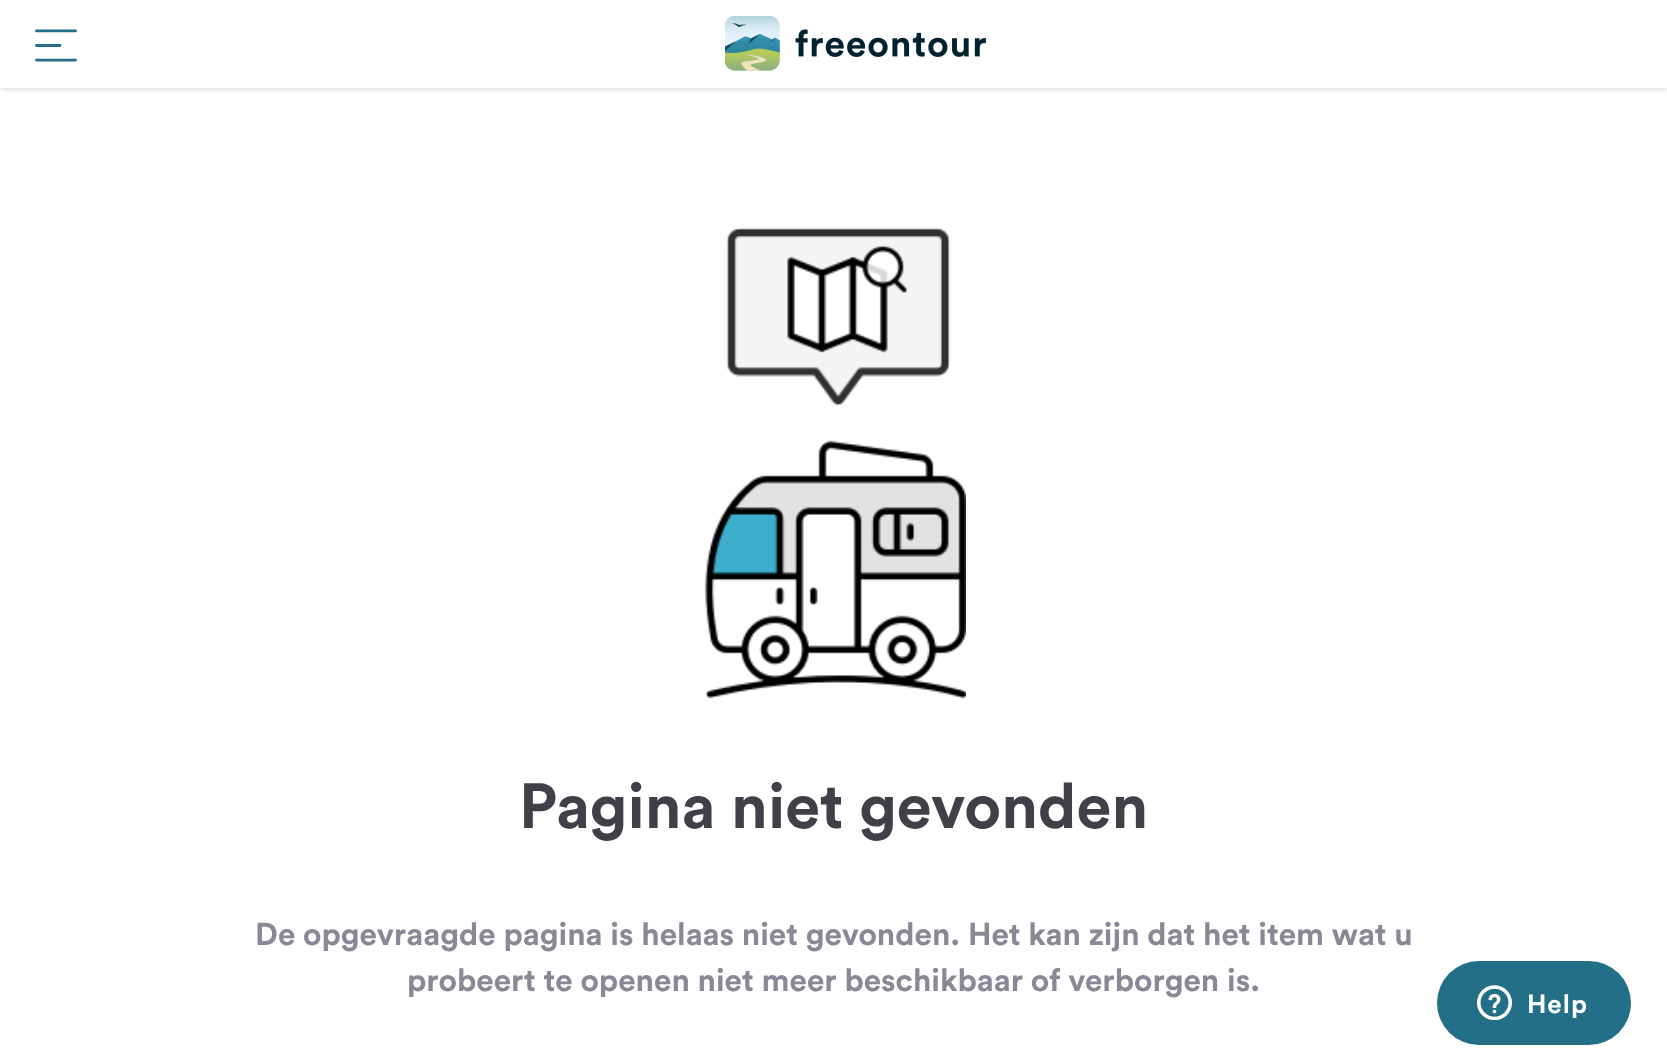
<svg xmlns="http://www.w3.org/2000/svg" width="1667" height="1063">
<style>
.a{font:bold 63px Circular;fill:#404048}
.b{font:bold 31.5px Circular;fill:#888896}
.c{font:bold 26px Circular;letter-spacing:1px;fill:#fff}
</style>
<rect width="100%" height="100%" fill="#fff"/>
<path fill="#0000000f" filter="blur(2px)" d="M0 2h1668v87H0z"/>
<path fill="#0000001a" filter="blur(2.5px)" d="M0 2h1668v87H0z"/>
<path fill="#fff" d="M0 0h1667v88H0z"/>
<image href="1.png" x="35" y="29" width="42" height="33"/>
<image href="2.png" x="725" y="16" width="261" height="55"/>
<image href="3.png" x="704" y="227" width="262" height="472"/>
<rect fill="#236f88" x="1437" y="961" width="194" height="84" rx="42"/>
<image href="4.png" x="1477" y="985" width="35" height="35"/>
<text class="a" x="519" y="828">Pagina niet gevonden</text>
<text class="b" x="255" y="945">De opgevraagde pagina is helaas niet gevonden. Het kan zijn dat het item wat u</text>
<text class="b" x="407" y="991">probeert te openen niet meer beschikbaar of verborgen is.</text>
<text class="c" x="1527" y="1013">Help</text>
</svg>
